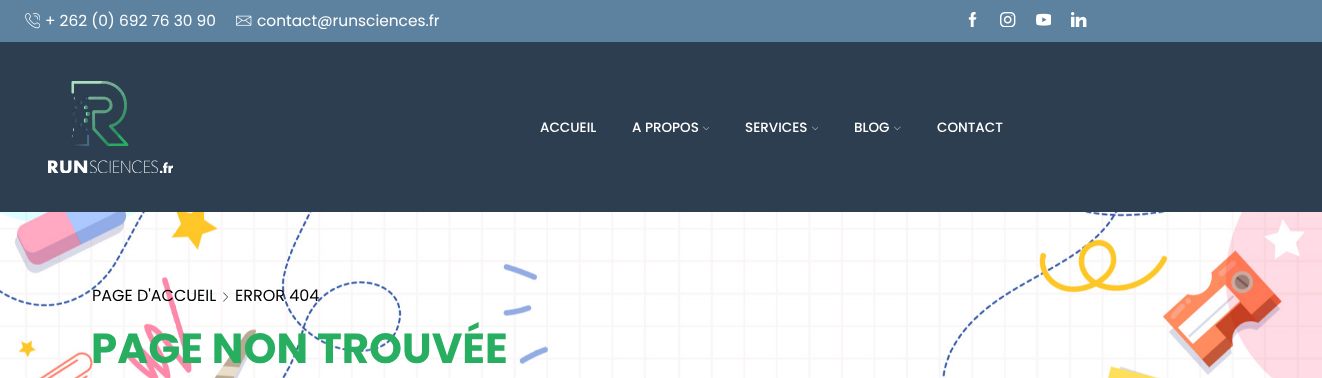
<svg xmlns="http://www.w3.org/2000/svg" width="1322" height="378">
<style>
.a{font:15.4px Poppins;fill:#fff}
.b{font:500 13.5px Poppins;fill:#fff}
.c{font:16px Poppins;fill:#000}
.d{font:bold 42px Poppins;fill:#27ae60}
</style>
<rect width="100%" height="100%" fill="#fff"/>
<path fill="#5d82a0" d="M0 0h1322v42H0z"/>
<image href="1.png" x="25" y="13" width="15" height="16"/>
<image href="2.png" x="236" y="15" width="16" height="11"/>
<image href="3.png" x="968" y="12" width="9" height="15"/>
<image href="4.png" x="1000" y="12" width="16" height="15"/>
<image href="5.png" x="1036" y="13" width="15" height="13"/>
<image href="6.png" x="1071" y="12" width="16" height="15"/>
<path fill="#2c3e50" d="M0 42h1322v170H0z"/>
<image href="7.png" x="48" y="81" width="125" height="92"/>
<image href="8.png" x="703" y="126" width="6" height="4"/>
<image href="8.png" x="812" y="126" width="6" height="4"/>
<image href="9.png" x="894" y="126" width="7" height="4"/>
<image href="10.png" x="0" y="212" width="1322" height="166"/>
<image href="11.png" x="223" y="292" width="5" height="10"/>
<text class="a" x="45" y="26">+ 262 (0) 692 76 30 90</text>
<text class="a" x="257" y="26">contact@runsciences.fr</text>
<text class="b" x="540" y="132">ACCUEIL</text>
<text class="b" x="632" y="132">A PROPOS</text>
<text class="b" x="745" y="132">SERVICES</text>
<text class="b" x="854" y="132">BLOG</text>
<text class="b" x="937" y="132">CONTACT</text>
<text class="c" x="92" y="301">PAGE D'ACCUEIL</text>
<text class="c" x="235" y="301">ERROR 404</text>
<text class="d" x="91" y="363">PAGE NON TROUVÉE</text>
</svg>
